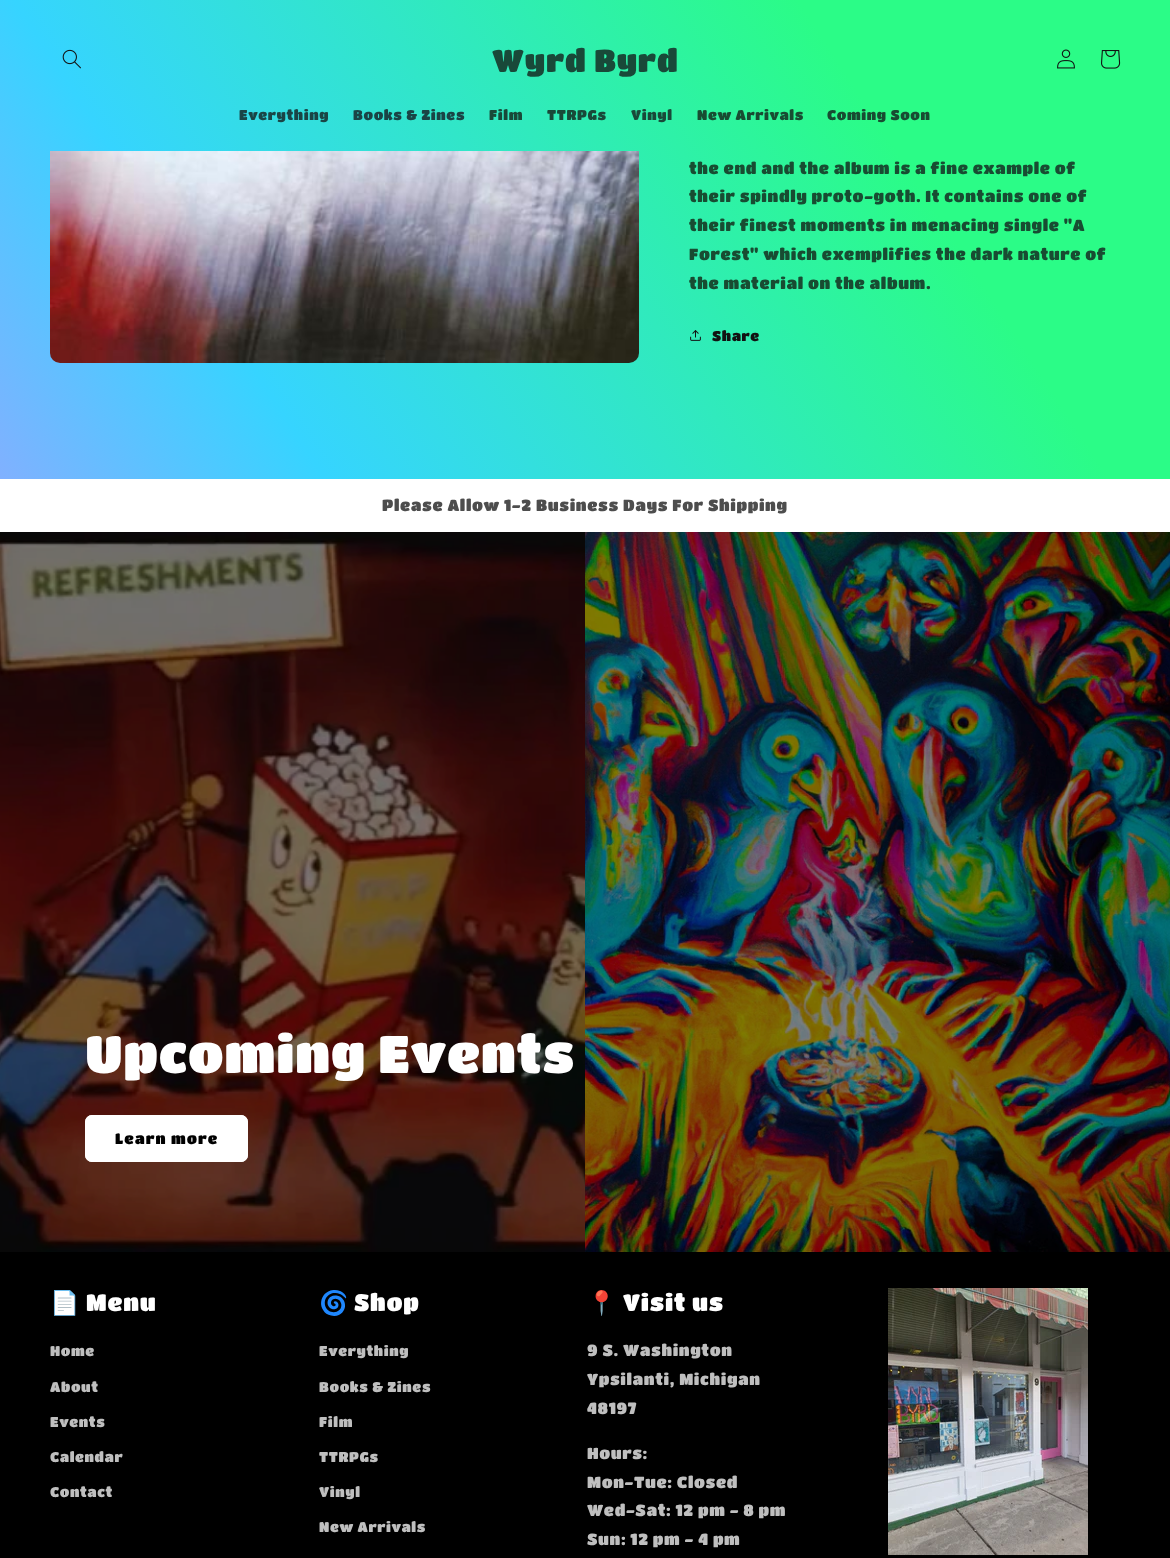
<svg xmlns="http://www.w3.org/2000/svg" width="1170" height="1558">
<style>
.a{font:31.25px Titan One;letter-spacing:0.75px;fill:#194939}
.b{font:14px Titan One;letter-spacing:0.6px;fill:#1a4546}
.c{font:14px Titan One;letter-spacing:0.6px;fill:#194939}
.d{font:14px Titan One;letter-spacing:0.6px;fill:#184c32}
.e{font:16px Titan One;letter-spacing:0.6px;fill:#184c32}
.f{font:14px Titan One;letter-spacing:0.6px;fill:#121212}
.g{font:16px Titan One;letter-spacing:0.6px;fill:#4d4d4d}
.h{font:52px Titan One;letter-spacing:0.75px;fill:#fff}
.i{font:15px Titan One;letter-spacing:1px;fill:#000}
.j{font:23.5px Noto Color Emoji;letter-spacing:0.75px;fill:#fff}
.k{font:23.5px Titan One;letter-spacing:0.75px;fill:#fff}
.l{font:14px Titan One;letter-spacing:0.6px;fill:#bfbfbf}
.m{font:16px Titan One;letter-spacing:0.6px;fill:#bfbfbf}
</style>
<defs>
<linearGradient id="g1" gradientUnits="userSpaceOnUse" x1="-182" y1="1277" x2="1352" y2="281"><stop offset="0.08" stop-color="#f977ff"/><stop offset="0.47" stop-color="#36d4ff"/><stop offset="0.83" stop-color="#2bfc87"/></linearGradient>
</defs>
<rect width="100%" height="100%" fill="#fff"/>
<path fill="url(#g1)" d="M0 151h1170v328H0z"/>
<path fill="url(#g1)" d="M50 0h589v353c0 5.5-4.5 10-10 10h-569c-5.5 0-10-4.5-10-10z"/>
<path fill="url(#g1)" d="M0 0h1170v151H0z"/>
<image href="1.png" x="62" y="49" width="19" height="20"/>
<image href="2.png" x="1057" y="49" width="18" height="20"/>
<image href="3.png" x="1101" y="50" width="20" height="19"/>
<image href="4.png" x="50" y="151" width="589" height="212"/>
<image href="5.png" x="690" y="330" width="11" height="11"/>
<image href="6.png" x="0" y="532" width="585" height="720"/>
<image href="7.png" x="585" y="532" width="585" height="720"/>
<rect fill="#fff" x="85" y="1115" width="163" height="47" rx="7"/>
<rect fill="none" stroke="#fff" x="85.5" y="1115.5" width="162" height="46" rx="6.5"/>
<path fill="#000" d="M0 1252h1170v306H0z"/>
<image href="8.png" x="888" y="1288" width="200" height="267"/>
<text class="a" x="492" y="72">Wyrd Byrd</text>
<text class="b" x="239" y="120">Everything</text>
<text class="b" x="353" y="120">Books &amp; Zines</text>
<text class="c" x="489" y="120">Film</text>
<text class="c" x="547" y="120">TTRPGs</text>
<text class="c" x="631" y="120">Vinyl</text>
<text class="d" x="697" y="120">New Arrivals</text>
<text class="d" x="827" y="120">Coming Soon</text>
<text class="e" x="689" y="174">the end and the album is a fine example of</text>
<text class="e" x="689" y="202">their spindly proto-goth. It contains one of</text>
<text class="e" x="689" y="231">their finest moments in menacing single "A</text>
<text class="e" x="689" y="260">Forest" which exemplifies the dark nature of</text>
<text class="e" x="689" y="289">the material on the album.</text>
<text class="f" x="712" y="341">Share</text>
<text class="g" x="382" y="511">Please Allow 1-2 Business Days For Shipping</text>
<text class="h" x="85" y="1073">Upcoming Events</text>
<text class="i" x="115" y="1144">Learn more</text>
<text class="j" x="50" y="1311">📄</text>
<text class="k" x="86" y="1311">Menu</text>
<text class="l" x="50" y="1356">Home</text>
<text class="l" x="50" y="1392">About</text>
<text class="l" x="50" y="1427">Events</text>
<text class="l" x="50" y="1462">Calendar</text>
<text class="l" x="50" y="1497">Contact</text>
<text class="j" x="319" y="1311">🌀</text>
<text class="k" x="354" y="1311">Shop</text>
<text class="l" x="319" y="1356">Everything</text>
<text class="l" x="319" y="1392">Books &amp; Zines</text>
<text class="l" x="319" y="1427">Film</text>
<text class="l" x="319" y="1462">TTRPGs</text>
<text class="l" x="319" y="1497">Vinyl</text>
<text class="l" x="319" y="1532">New Arrivals</text>
<text class="j" x="587" y="1311">📍</text>
<text class="k" x="623" y="1311">Visit us</text>
<text class="m" x="587" y="1356">9 S. Washington</text>
<text class="m" x="587" y="1385">Ypsilanti, Michigan</text>
<text class="m" x="587" y="1414">48197</text>
<text class="m" x="587" y="1459">Hours:</text>
<text class="m" x="587" y="1488">Mon-Tue: Closed</text>
<text class="m" x="587" y="1516">Wed-Sat: 12 pm - 8 pm</text>
<text class="m" x="587" y="1545">Sun: 12 pm - 4 pm</text>
</svg>
